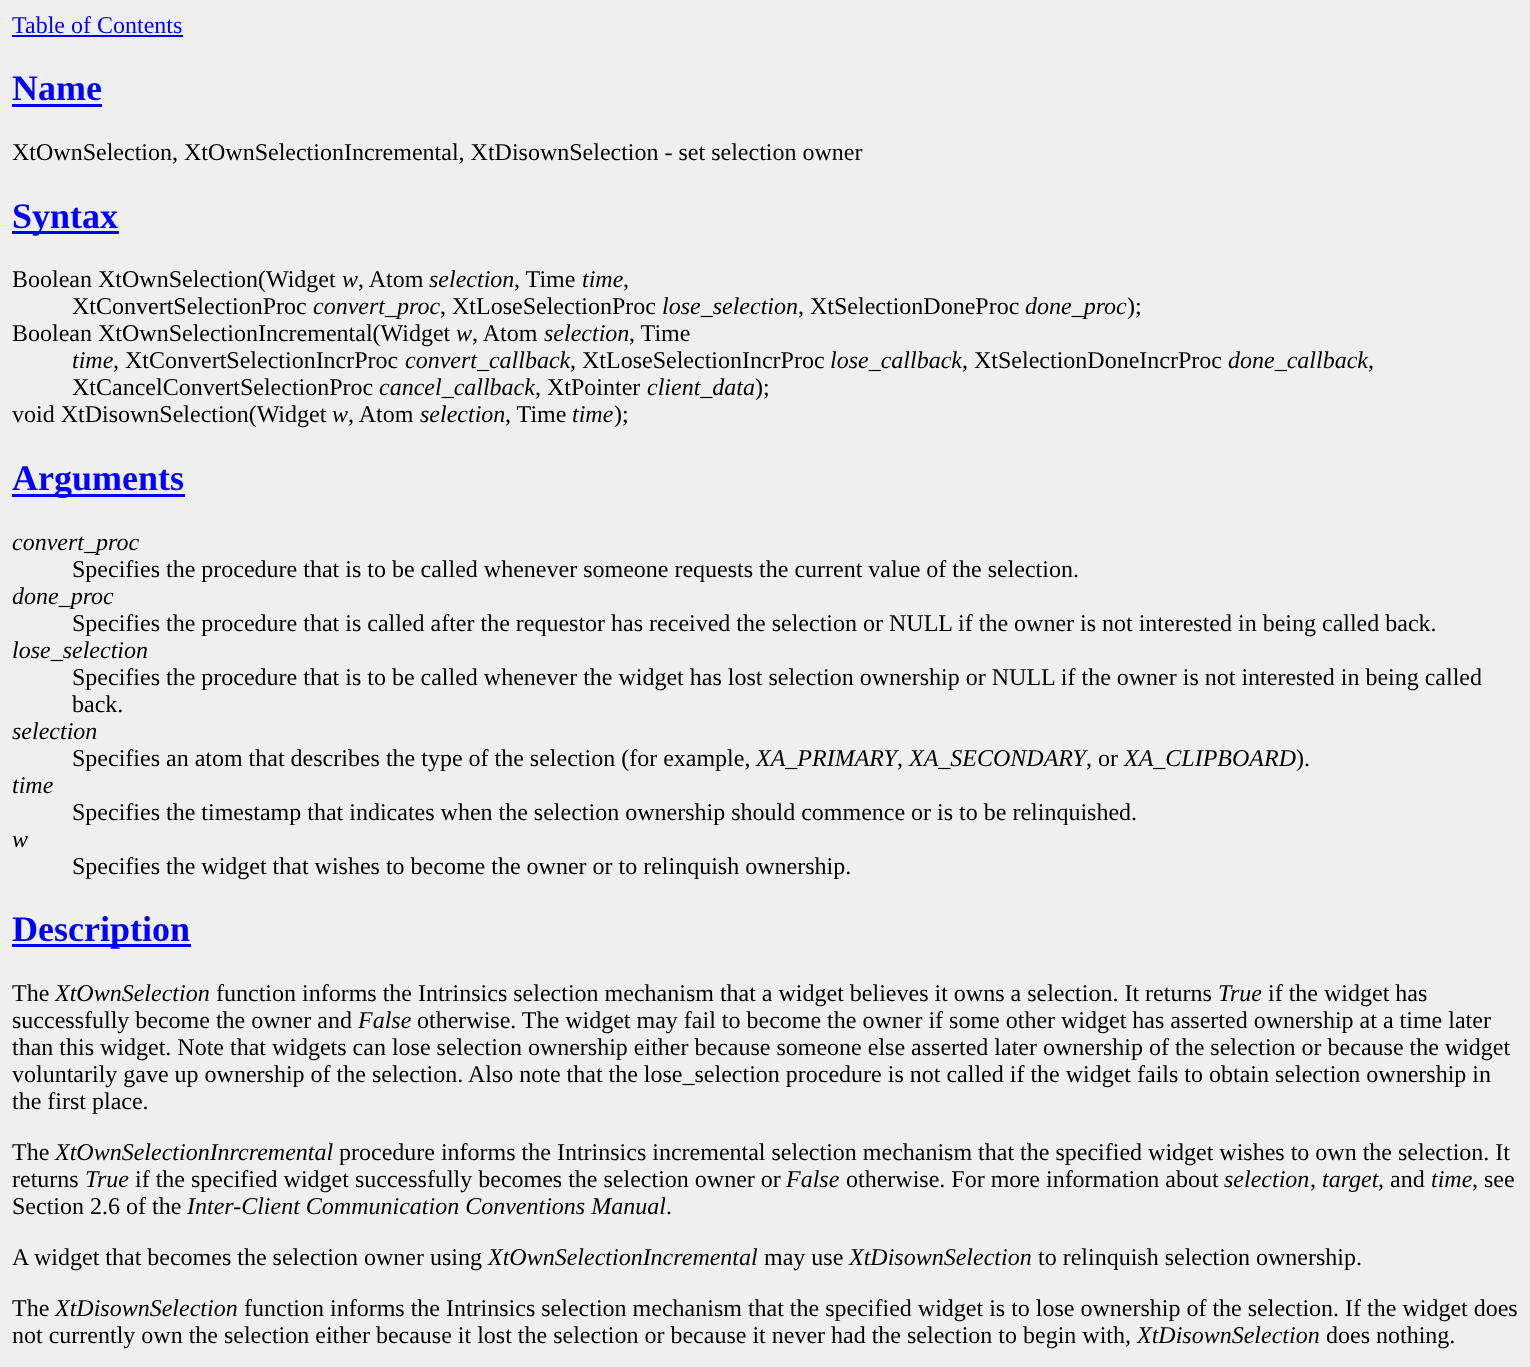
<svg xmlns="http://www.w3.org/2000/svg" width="1530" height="1367">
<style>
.a{font:24px Liberation Serif;fill:#00f}
.b{font:bold 36px Liberation Serif;fill:#00f}
.c{font:24px Liberation Serif;fill:#000}
.d{font:italic 24px Liberation Serif;fill:#000}
</style>
<rect width="100%" height="100%" fill="#efefef"/>
<path fill="#00f" d="M12 35h171v2H12z"/>
<path fill="#00f" d="M12 104h90v3H12z"/>
<path fill="#00f" d="M12 231h107v3H12z"/>
<path fill="#00f" d="M12 494h173v3H12z"/>
<path fill="#00f" d="M12 944h179v3H12z"/>
<text class="a" x="12" y="33">Table of Contents</text>
<text class="b" x="12" y="100">Name</text>
<text class="c" x="12" y="160">XtOwnSelection, XtOwnSelectionIncremental, XtDisownSelection - set selection owner</text>
<text class="b" x="12" y="228">Syntax</text>
<text class="c" x="12" y="287">Boolean XtOwnSelection(Widget</text>
<text class="d" x="342" y="287">w</text>
<text class="c" x="358" y="287">, Atom</text>
<text class="d" x="429" y="287">selection</text>
<text class="c" x="514" y="287">, Time</text>
<text class="d" x="582" y="287">time</text>
<text class="c" x="623" y="287">,</text>
<text class="c" x="72" y="314">XtConvertSelectionProc</text>
<text class="d" x="313" y="314">convert_proc</text>
<text class="c" x="440" y="314">, XtLoseSelectionProc</text>
<text class="d" x="662" y="314">lose_selection</text>
<text class="c" x="798" y="314">, XtSelectionDoneProc</text>
<text class="d" x="1025" y="314">done_proc</text>
<text class="c" x="1127" y="314">);</text>
<text class="c" x="12" y="341">Boolean XtOwnSelectionIncremental(Widget</text>
<text class="d" x="456" y="341">w</text>
<text class="c" x="472" y="341">, Atom</text>
<text class="d" x="544" y="341">selection</text>
<text class="c" x="629" y="341">, Time</text>
<text class="d" x="72" y="368">time</text>
<text class="c" x="113" y="368">, XtConvertSelectionIncrProc</text>
<text class="d" x="405" y="368">convert_callback</text>
<text class="c" x="570" y="368">, XtLoseSelectionIncrProc</text>
<text class="d" x="830" y="368">lose_callback</text>
<text class="c" x="962" y="368">, XtSelectionDoneIncrProc</text>
<text class="d" x="1228" y="368">done_callback</text>
<text class="c" x="1368" y="368">,</text>
<text class="c" x="72" y="395">XtCancelConvertSelectionProc</text>
<text class="d" x="379" y="395">cancel_callback</text>
<text class="c" x="535" y="395">, XtPointer</text>
<text class="d" x="647" y="395">client_data</text>
<text class="c" x="755" y="395">);</text>
<text class="c" x="12" y="422">void XtDisownSelection(Widget</text>
<text class="d" x="332" y="422">w</text>
<text class="c" x="348" y="422">, Atom</text>
<text class="d" x="420" y="422">selection</text>
<text class="c" x="505" y="422">, Time</text>
<text class="d" x="572" y="422">time</text>
<text class="c" x="614" y="422">);</text>
<text class="b" x="12" y="490">Arguments</text>
<text class="d" x="12" y="550">convert_proc</text>
<text class="c" x="72" y="577">Specifies the procedure that is to be called whenever someone requests the current value of the selection.</text>
<text class="d" x="12" y="604">done_proc</text>
<text class="c" x="72" y="631">Specifies the procedure that is called after the requestor has received the selection or NULL if the owner is not interested in being called back.</text>
<text class="d" x="12" y="658">lose_selection</text>
<text class="c" x="72" y="685">Specifies the procedure that is to be called whenever the widget has lost selection ownership or NULL if the owner is not interested in being called</text>
<text class="c" x="72" y="712">back.</text>
<text class="d" x="12" y="739">selection</text>
<text class="c" x="72" y="766">Specifies an atom that describes the type of the selection (for example,</text>
<text class="d" x="756" y="766">XA_PRIMARY</text>
<text class="d" x="909" y="766">XA_SECONDARY</text>
<text class="c" x="1086" y="766">, or</text>
<text class="d" x="1124" y="766">XA_CLIPBOARD</text>
<text class="c" x="1296" y="766">).</text>
<text class="c" x="897" y="766">,</text>
<text class="d" x="12" y="793">time</text>
<text class="c" x="72" y="820">Specifies the timestamp that indicates when the selection ownership should commence or is to be relinquished.</text>
<text class="d" x="12" y="847">w</text>
<text class="c" x="72" y="874">Specifies the widget that wishes to become the owner or to relinquish ownership.</text>
<text class="b" x="12" y="941">Description</text>
<text class="c" x="12" y="1001">The</text>
<text class="d" x="55" y="1001">XtOwnSelection</text>
<text class="c" x="216" y="1001">function informs the Intrinsics selection mechanism that a widget believes it owns a selection. It returns</text>
<text class="d" x="1218" y="1001">True</text>
<text class="c" x="1268" y="1001">if the widget has</text>
<text class="c" x="12" y="1028">successfully become the owner and</text>
<text class="d" x="358" y="1028">False</text>
<text class="c" x="417" y="1028">otherwise. The widget may fail to become the owner if some other widget has asserted ownership at a time later</text>
<text class="c" x="12" y="1055">than this widget. Note that widgets can lose selection ownership either because someone else asserted later ownership of the selection or because the widget</text>
<text class="c" x="12" y="1082">voluntarily gave up ownership of the selection. Also note that the lose_selection procedure is not called if the widget fails to obtain selection ownership in</text>
<text class="c" x="12" y="1109">the first place.</text>
<text class="c" x="12" y="1160">The</text>
<text class="d" x="55" y="1160">XtOwnSelectionInrcremental</text>
<text class="c" x="339" y="1160">procedure informs the Intrinsics incremental selection mechanism that the specified widget wishes to own the selection. It</text>
<text class="c" x="12" y="1187">returns</text>
<text class="d" x="85" y="1187">True</text>
<text class="c" x="135" y="1187">if the specified widget successfully becomes the selection owner or</text>
<text class="d" x="786" y="1187">False</text>
<text class="c" x="846" y="1187">otherwise. For more information about</text>
<text class="d" x="1224" y="1187">selection</text>
<text class="c" x="1310" y="1187">,</text>
<text class="d" x="1322" y="1187">target</text>
<text class="c" x="1378" y="1187">, and</text>
<text class="d" x="1431" y="1187">time</text>
<text class="c" x="1472" y="1187">, see</text>
<text class="c" x="12" y="1214">Section 2.6 of the</text>
<text class="d" x="187" y="1214">Inter-Client Communication Conventions Manual</text>
<text class="c" x="666" y="1214">.</text>
<text class="c" x="12" y="1265">A widget that becomes the selection owner using</text>
<text class="d" x="488" y="1265">XtOwnSelectionIncremental</text>
<text class="c" x="764" y="1265">may use</text>
<text class="d" x="849" y="1265">XtDisownSelection</text>
<text class="c" x="1038" y="1265">to relinquish selection ownership.</text>
<text class="c" x="12" y="1316">The</text>
<text class="d" x="55" y="1316">XtDisownSelection</text>
<text class="c" x="244" y="1316">function informs the Intrinsics selection mechanism that the specified widget is to lose ownership of the selection. If the widget does</text>
<text class="c" x="12" y="1343">not currently own the selection either because it lost the selection or because it never had the selection to begin with,</text>
<text class="d" x="1137" y="1343">XtDisownSelection</text>
<text class="c" x="1326" y="1343">does nothing.</text>
</svg>
